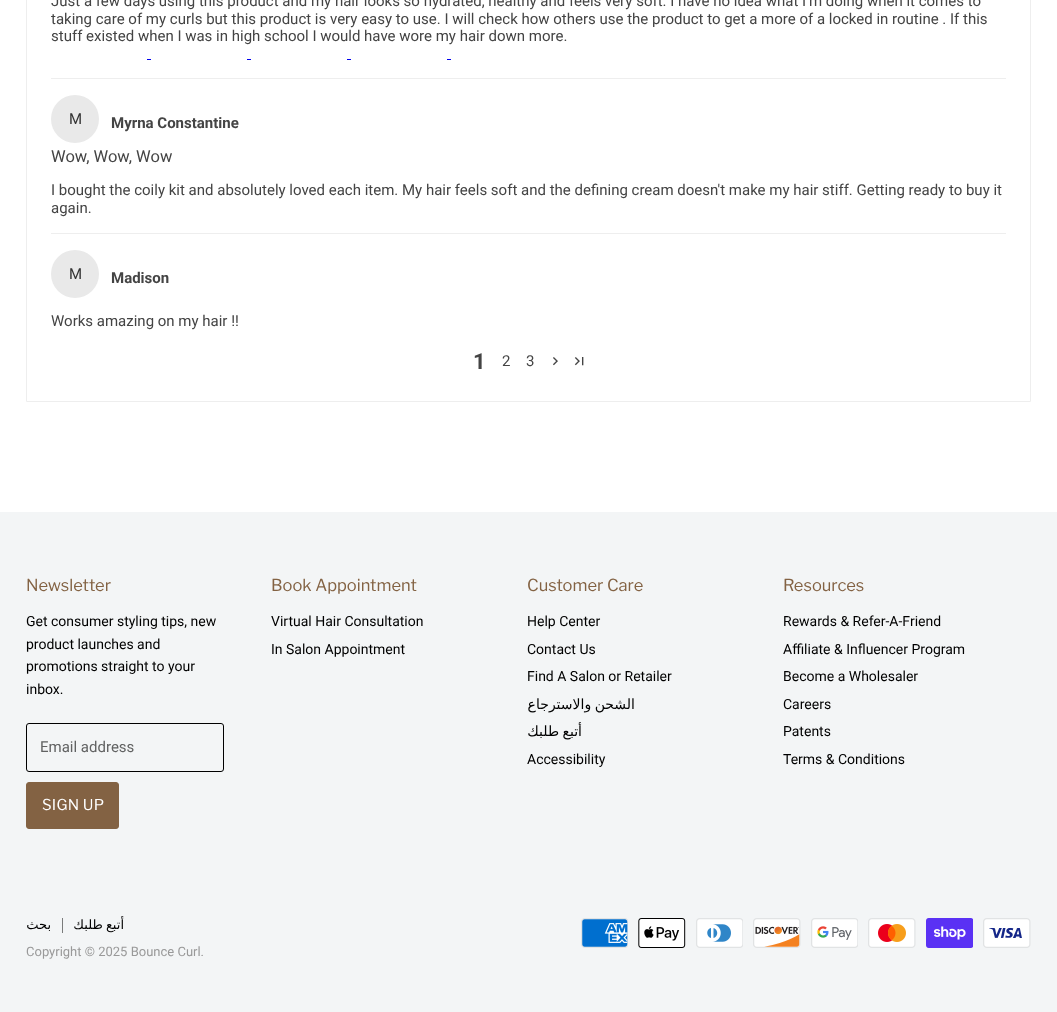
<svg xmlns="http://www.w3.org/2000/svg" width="1057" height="1012">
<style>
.a{font:15px Roboto;fill:#444}
.b{font:15px Roboto;fill:#333}
.c{font:bold 15px Roboto;fill:#444}
.d{font:16.5px Roboto;fill:#444}
.e{font:bold 22px Roboto;fill:#444}
.f{font:16.5px Libre Franklin;fill:#836243}
.g{font:14px Roboto;fill:#000}
.h{font:15px Roboto;fill:#616262}
.i{font:15px Libre Franklin;letter-spacing:0.25px;fill:#fff}
.j{font:14px DejaVu Sans;direction:rtl;fill:#000}
.k{font:13px DejaVu Sans;direction:rtl;fill:#000}
.l{font:13px Roboto;fill:#999}
</style>
<rect width="100%" height="100%" fill="#fff"/>
<path fill="none" stroke="#eee" d="M26.5 -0.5h1004v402H26.5z"/>
<path fill="#00e" d="M147 59h4v1H147z"/>
<path fill="#00e" d="M247 59h4v1H247z"/>
<path fill="#00e" d="M347 59h4v1H347z"/>
<path fill="#00e" d="M447 59h4v1H447z"/>
<path fill="#eee" d="M51 78h955v1H51z"/>
<circle fill="#e9e9e9" cx="75" cy="119" r="24"/>
<path fill="#eee" d="M51 233h955v1H51z"/>
<circle fill="#e9e9e9" cx="75" cy="274" r="24"/>
<image href="1.png" x="553" y="357" width="5" height="9"/>
<image href="2.png" x="574" y="357" width="10" height="9"/>
<path fill="#f3f5f6" d="M0 512h1057v500H0z"/>
<rect fill="none" stroke="#000" x="26.5" y="723.5" width="197" height="48" rx="2.5"/>
<rect fill="#836243" stroke="#836243" x="26.5" y="782.5" width="92" height="46" rx="2.5"/>
<path fill="#7a7b7b" d="M62 918h1v15H62z"/>
<image href="3.png" x="581" y="918" width="47" height="30"/>
<image href="4.png" x="638" y="918" width="48" height="30"/>
<image href="5.png" x="696" y="918" width="47" height="30"/>
<image href="6.png" x="753" y="918" width="48" height="30"/>
<image href="7.png" x="811" y="918" width="47" height="30"/>
<image href="8.png" x="868" y="918" width="48" height="30"/>
<image href="9.png" x="926" y="918" width="47" height="30"/>
<image href="10.png" x="983" y="918" width="48" height="30"/>
<text class="a" x="51" y="6">Just a few days using this product and my hair looks so hydrated, healthy and feels very soft. I have no idea what I’m doing when it comes to</text>
<text class="a" x="51" y="24">taking care of my curls but this product is very easy to use. I will check how others use the product to get a more of a locked in routine . If this</text>
<text class="a" x="51" y="41">stuff existed when I was in high school I would have wore my hair down more.</text>
<text class="b" x="69" y="124">M</text>
<text class="c" x="111" y="128">Myrna Constantine</text>
<text class="d" x="51" y="162">Wow, Wow, Wow</text>
<text class="a" x="51" y="195">I bought the coily kit and absolutely loved each item. My hair feels soft and the defining cream doesn't make my hair stiff. Getting ready to buy it</text>
<text class="a" x="51" y="213">again.</text>
<text class="b" x="69" y="279">M</text>
<text class="c" x="111" y="283">Madison</text>
<text class="a" x="51" y="326">Works amazing on my hair !!</text>
<text class="e" x="473" y="369">1</text>
<text class="a" x="502" y="366">2</text>
<text class="a" x="526" y="366">3</text>
<text class="f" x="26" y="591">Newsletter</text>
<text class="g" x="26" y="626">Get consumer styling tips, new</text>
<text class="g" x="26" y="649">product launches and</text>
<text class="g" x="26" y="671">promotions straight to your</text>
<text class="g" x="26" y="694">inbox.</text>
<text class="h" x="40" y="752">Email address</text>
<text class="i" x="42" y="810">SIGN UP</text>
<text class="f" x="271" y="591">Book Appointment</text>
<text class="g" x="271" y="626">Virtual Hair Consultation</text>
<text class="g" x="271" y="654">In Salon Appointment</text>
<text class="f" x="527" y="591">Customer Care</text>
<text class="g" x="527" y="626">Help Center</text>
<text class="g" x="527" y="654">Contact Us</text>
<text class="g" x="527" y="681">Find A Salon or Retailer</text>
<text class="j" x="635" y="709" word-spacing="-1">الشحن والاسترجاع</text>
<text class="j" x="582" y="736" word-spacing="-1">أتبع طلبك</text>
<text class="g" x="527" y="764">Accessibility</text>
<text class="f" x="783" y="591">Resources</text>
<text class="g" x="783" y="626">Rewards &amp; Refer-A-Friend</text>
<text class="g" x="783" y="654">Affiliate &amp; Influencer Program</text>
<text class="g" x="783" y="681">Become a Wholesaler</text>
<text class="g" x="783" y="709">Careers</text>
<text class="g" x="783" y="736">Patents</text>
<text class="g" x="783" y="764">Terms &amp; Conditions</text>
<text class="k" x="51" y="929">بحث</text>
<text class="k" x="124" y="929" word-spacing="-1">أتبع طلبك</text>
<text class="l" x="26" y="956">Copyright © 2025 Bounce Curl.</text>
</svg>
